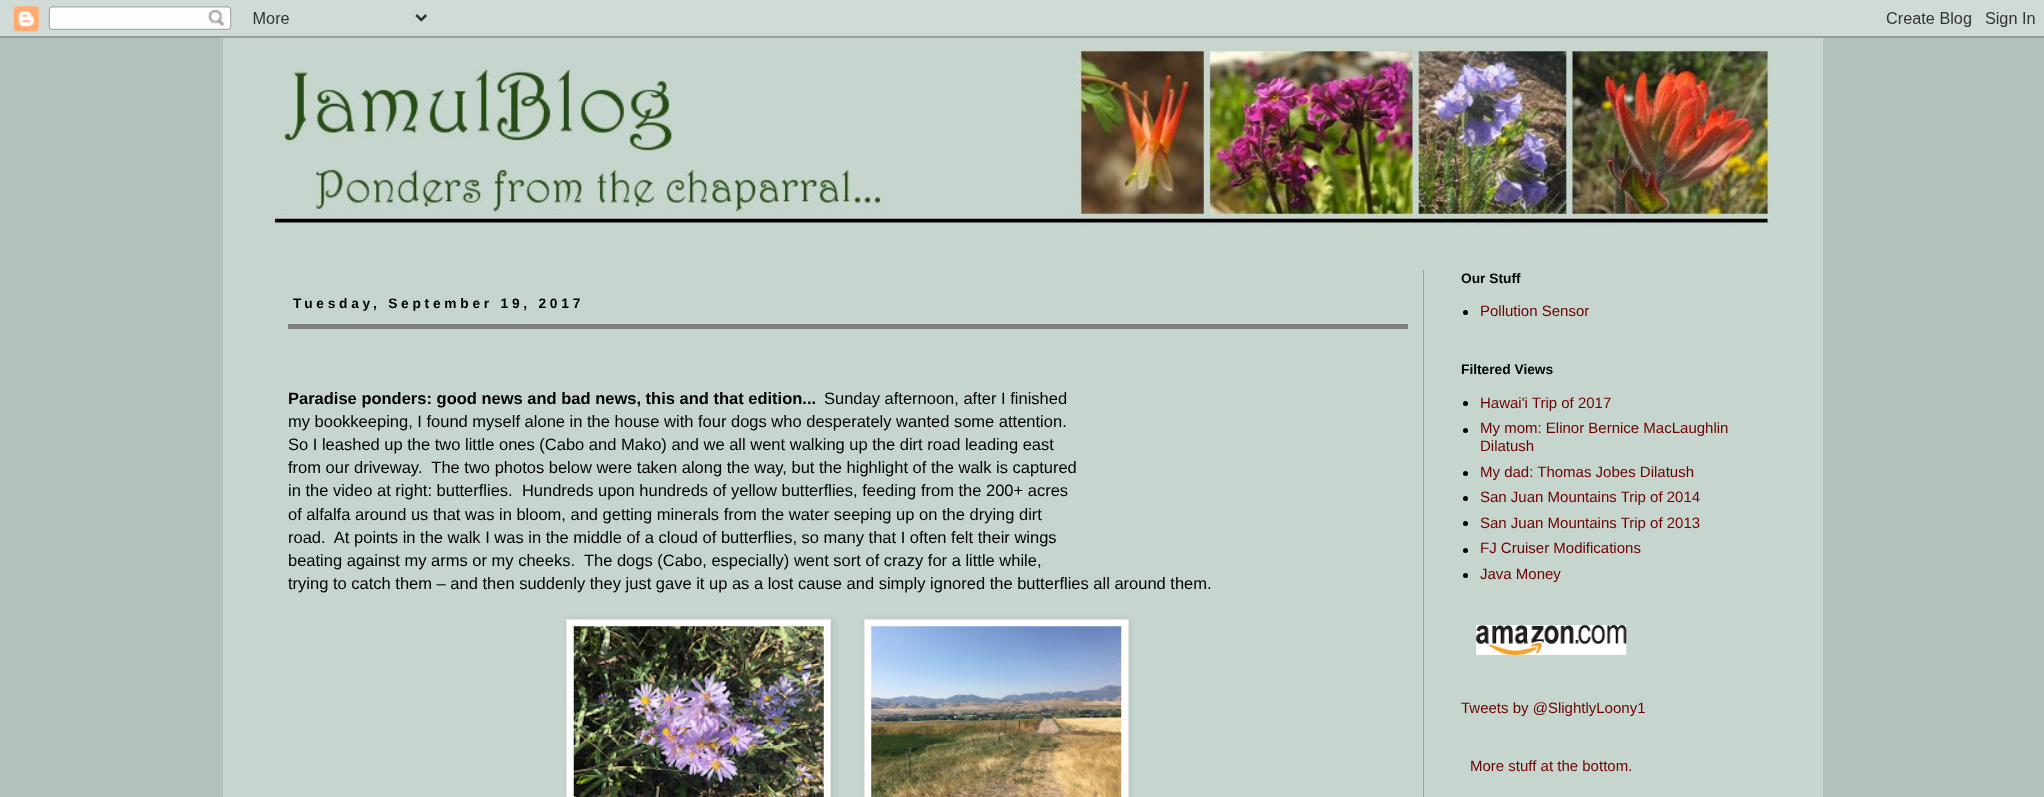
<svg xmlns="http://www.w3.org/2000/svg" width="2044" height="797">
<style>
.a{font:bold 13.75px Liberation Sans;letter-spacing:3.75px;fill:#000}
.b{font:bold 16.5px Liberation Sans;fill:#000}
.c{font:16.5px Liberation Sans;fill:#000}
.d{font:bold 13.75px Liberation Sans;fill:#000}
.e{font:15px Liberation Sans;fill:#6e0000}
</style>
<rect width="100%" height="100%" fill="#b1c1bc"/>
<image href="1.png" x="0" y="0" width="2044" height="38"/>
<path fill="#c6d6cf" d="M223 38h1600v759H223z"/>
<image href="2.png" x="273" y="50" width="1500" height="176"/>
<path fill="#808080" d="M288 324h1120v5H288z"/>
<path fill="#0000001a" filter="blur(3px)" d="M568 620h265v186H568z"/>
<path fill="#0000001a" filter="blur(3px)" d="M865 620h265v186H865z"/>
<path fill="#fff" stroke="#e7e7e7" d="M566.5 619.5h264v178H566.5z"/>
<path fill="#fff" stroke="#e7e7e7" d="M864.5 619.5h264v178H864.5z"/>
<image href="3.png" x="573" y="626" width="251" height="171"/>
<image href="4.png" x="871" y="626" width="251" height="171"/>
<path fill="#a0a0a0" d="M1423 270h1v527H1423z"/>
<circle fill="#000" cx="1465.5" cy="312.5" r="2.5"/>
<circle fill="#000" cx="1465.5" cy="403.5" r="2.5"/>
<circle fill="#000" cx="1465.5" cy="430.5" r="2.5"/>
<circle fill="#000" cx="1465.5" cy="473.5" r="2.5"/>
<circle fill="#000" cx="1465.5" cy="498.5" r="2.5"/>
<circle fill="#000" cx="1465.5" cy="523.5" r="2.5"/>
<circle fill="#000" cx="1465.5" cy="550.5" r="2.5"/>
<circle fill="#000" cx="1465.5" cy="575.5" r="2.5"/>
<image href="5.png" x="1476" y="625" width="151" height="30"/>
<text class="a" x="293" y="308">Tuesday, September 19, 2017</text>
<text class="b" x="288" y="404">Paradise ponders: good news and bad news, this and that edition...</text>
<text class="c" x="824" y="404">Sunday afternoon, after I finished</text>
<text class="c" x="288" y="427">my bookkeeping, I found myself alone in the house with four dogs who desperately wanted some attention.</text>
<text class="c" x="288" y="450">So I leashed up the two little ones (Cabo and Mako) and we all went walking up the dirt road leading east</text>
<text class="c" xml:space="preserve" x="288" y="473">from our driveway.  The two photos below were taken along the way, but the highlight of the walk is captured</text>
<text class="c" xml:space="preserve" x="288" y="496">in the video at right: butterflies.  Hundreds upon hundreds of yellow butterflies, feeding from the 200+ acres</text>
<text class="c" x="288" y="520">of alfalfa around us that was in bloom, and getting minerals from the water seeping up on the drying dirt</text>
<text class="c" xml:space="preserve" x="288" y="543">road.  At points in the walk I was in the middle of a cloud of butterflies, so many that I often felt their wings</text>
<text class="c" xml:space="preserve" x="288" y="566">beating against my arms or my cheeks.  The dogs (Cabo, especially) went sort of crazy for a little while,</text>
<text class="c" x="288" y="589">trying to catch them – and then suddenly they just gave it up as a lost cause and simply ignored the butterflies all around them.</text>
<text class="d" x="1461" y="283">Our Stuff</text>
<text class="e" x="1480" y="316">Pollution Sensor</text>
<text class="d" x="1461" y="374">Filtered Views</text>
<text class="e" x="1480" y="408">Hawai'i Trip of 2017</text>
<text class="e" x="1480" y="433">My mom: Elinor Bernice MacLaughlin</text>
<text class="e" x="1480" y="451">Dilatush</text>
<text class="e" x="1480" y="477">My dad: Thomas Jobes Dilatush</text>
<text class="e" x="1480" y="502">San Juan Mountains Trip of 2014</text>
<text class="e" x="1480" y="528">San Juan Mountains Trip of 2013</text>
<text class="e" x="1480" y="553">FJ Cruiser Modifications</text>
<text class="e" x="1480" y="579">Java Money</text>
<text class="e" x="1461" y="713">Tweets by @SlightlyLoony1</text>
<text class="e" x="1470" y="771">More stuff at the bottom.</text>
</svg>
